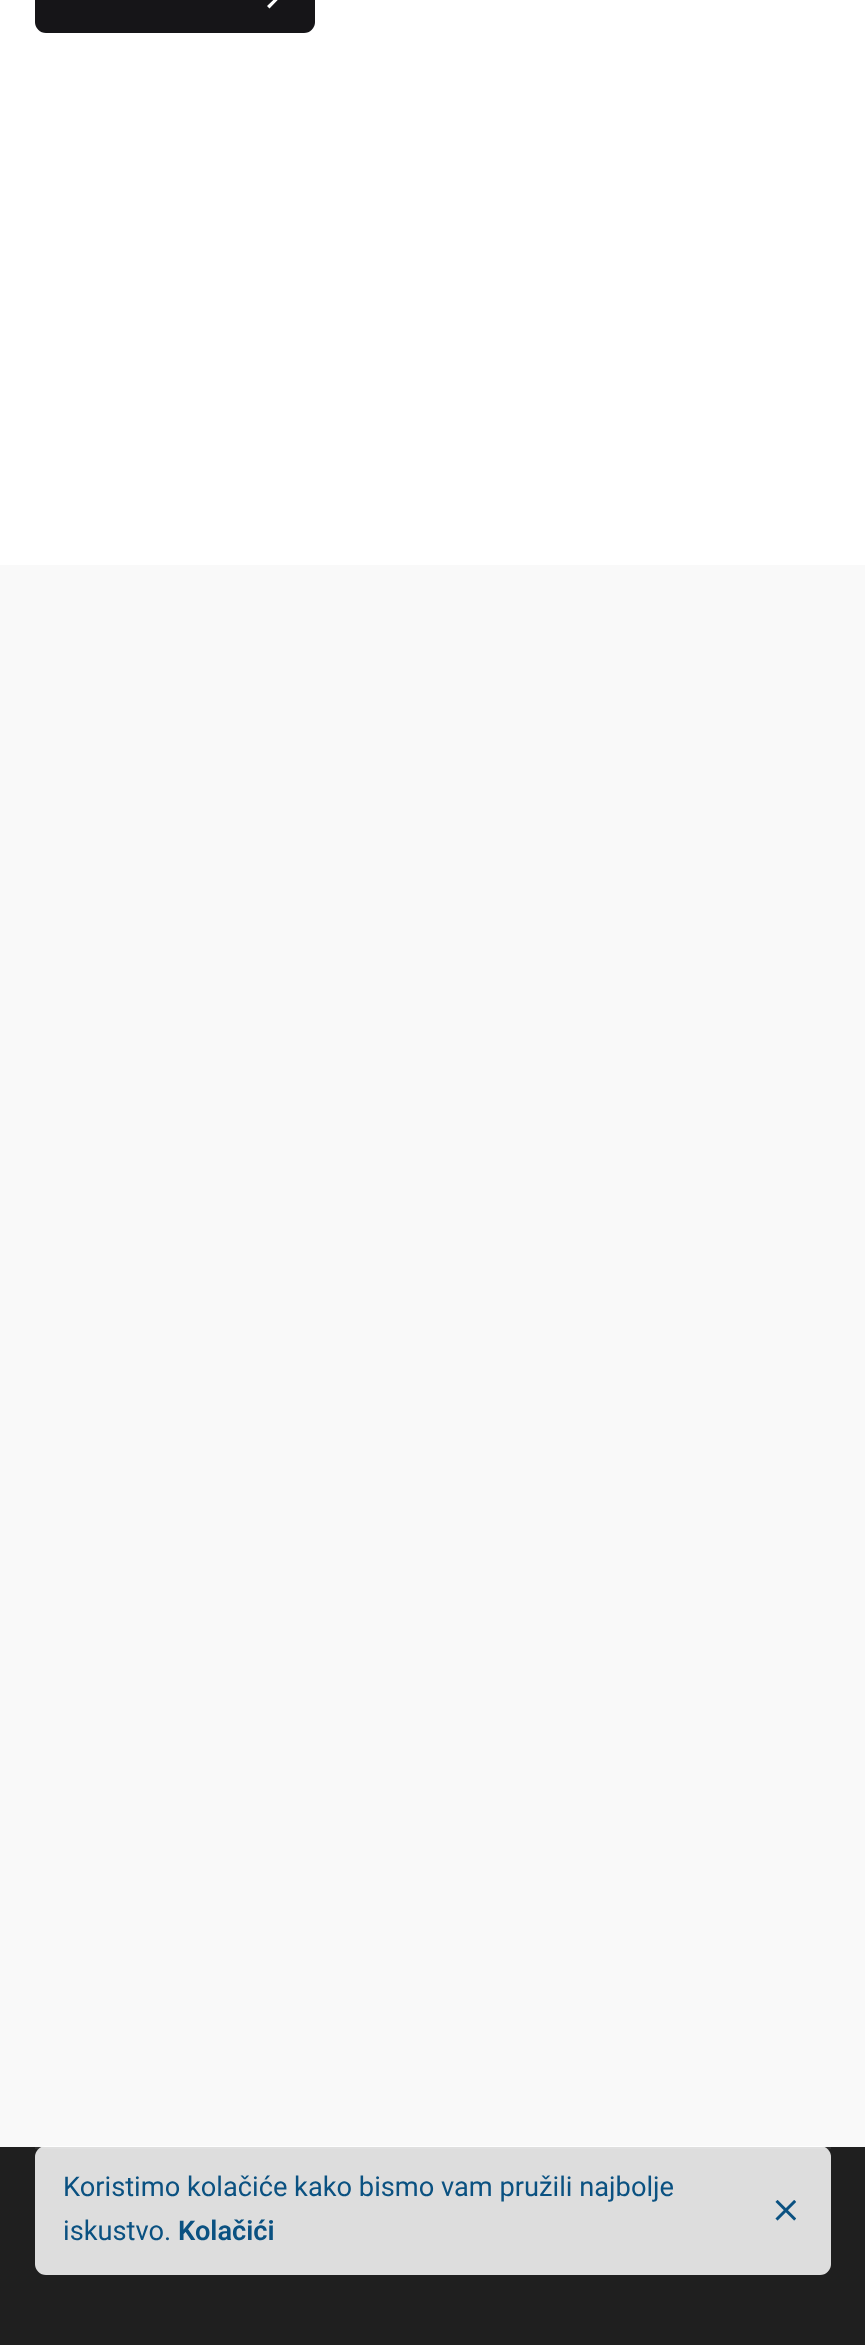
<svg xmlns="http://www.w3.org/2000/svg" width="865" height="2345">
<style>
.a{font:27.25px Roboto;fill:#0a5181}
.b{font:600 27.25px Roboto;fill:#0a5181}
</style>
<rect width="100%" height="100%" fill="#fff"/>
<rect fill="#161518" x="35" y="-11" width="280" height="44" rx="11"/>
<path fill="#fff" d="M277-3.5h-21v-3.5h21l-10-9.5l2.5-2.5l13.5 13.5l-13.5 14l-2.5-2.5z"/>
<path fill="#f9f9f9" d="M0 565h865v1582H0z"/>
<path fill="#1f1f1f" d="M0 2147h865v198H0z"/>
<path fill="#303030" d="M35 2147h796v2H35z"/>
<rect fill="#ffffffd9" x="35" y="2146" width="796" height="129" rx="11"/>
<image href="1.png" x="775" y="2200" width="21" height="21"/>
<text class="a" x="63" y="2196">Koristimo kolačiće kako bismo vam pružili najbolje</text>
<text class="a" x="63" y="2240">iskustvo.</text>
<text class="b" x="178" y="2240">Kolačići</text>
</svg>
